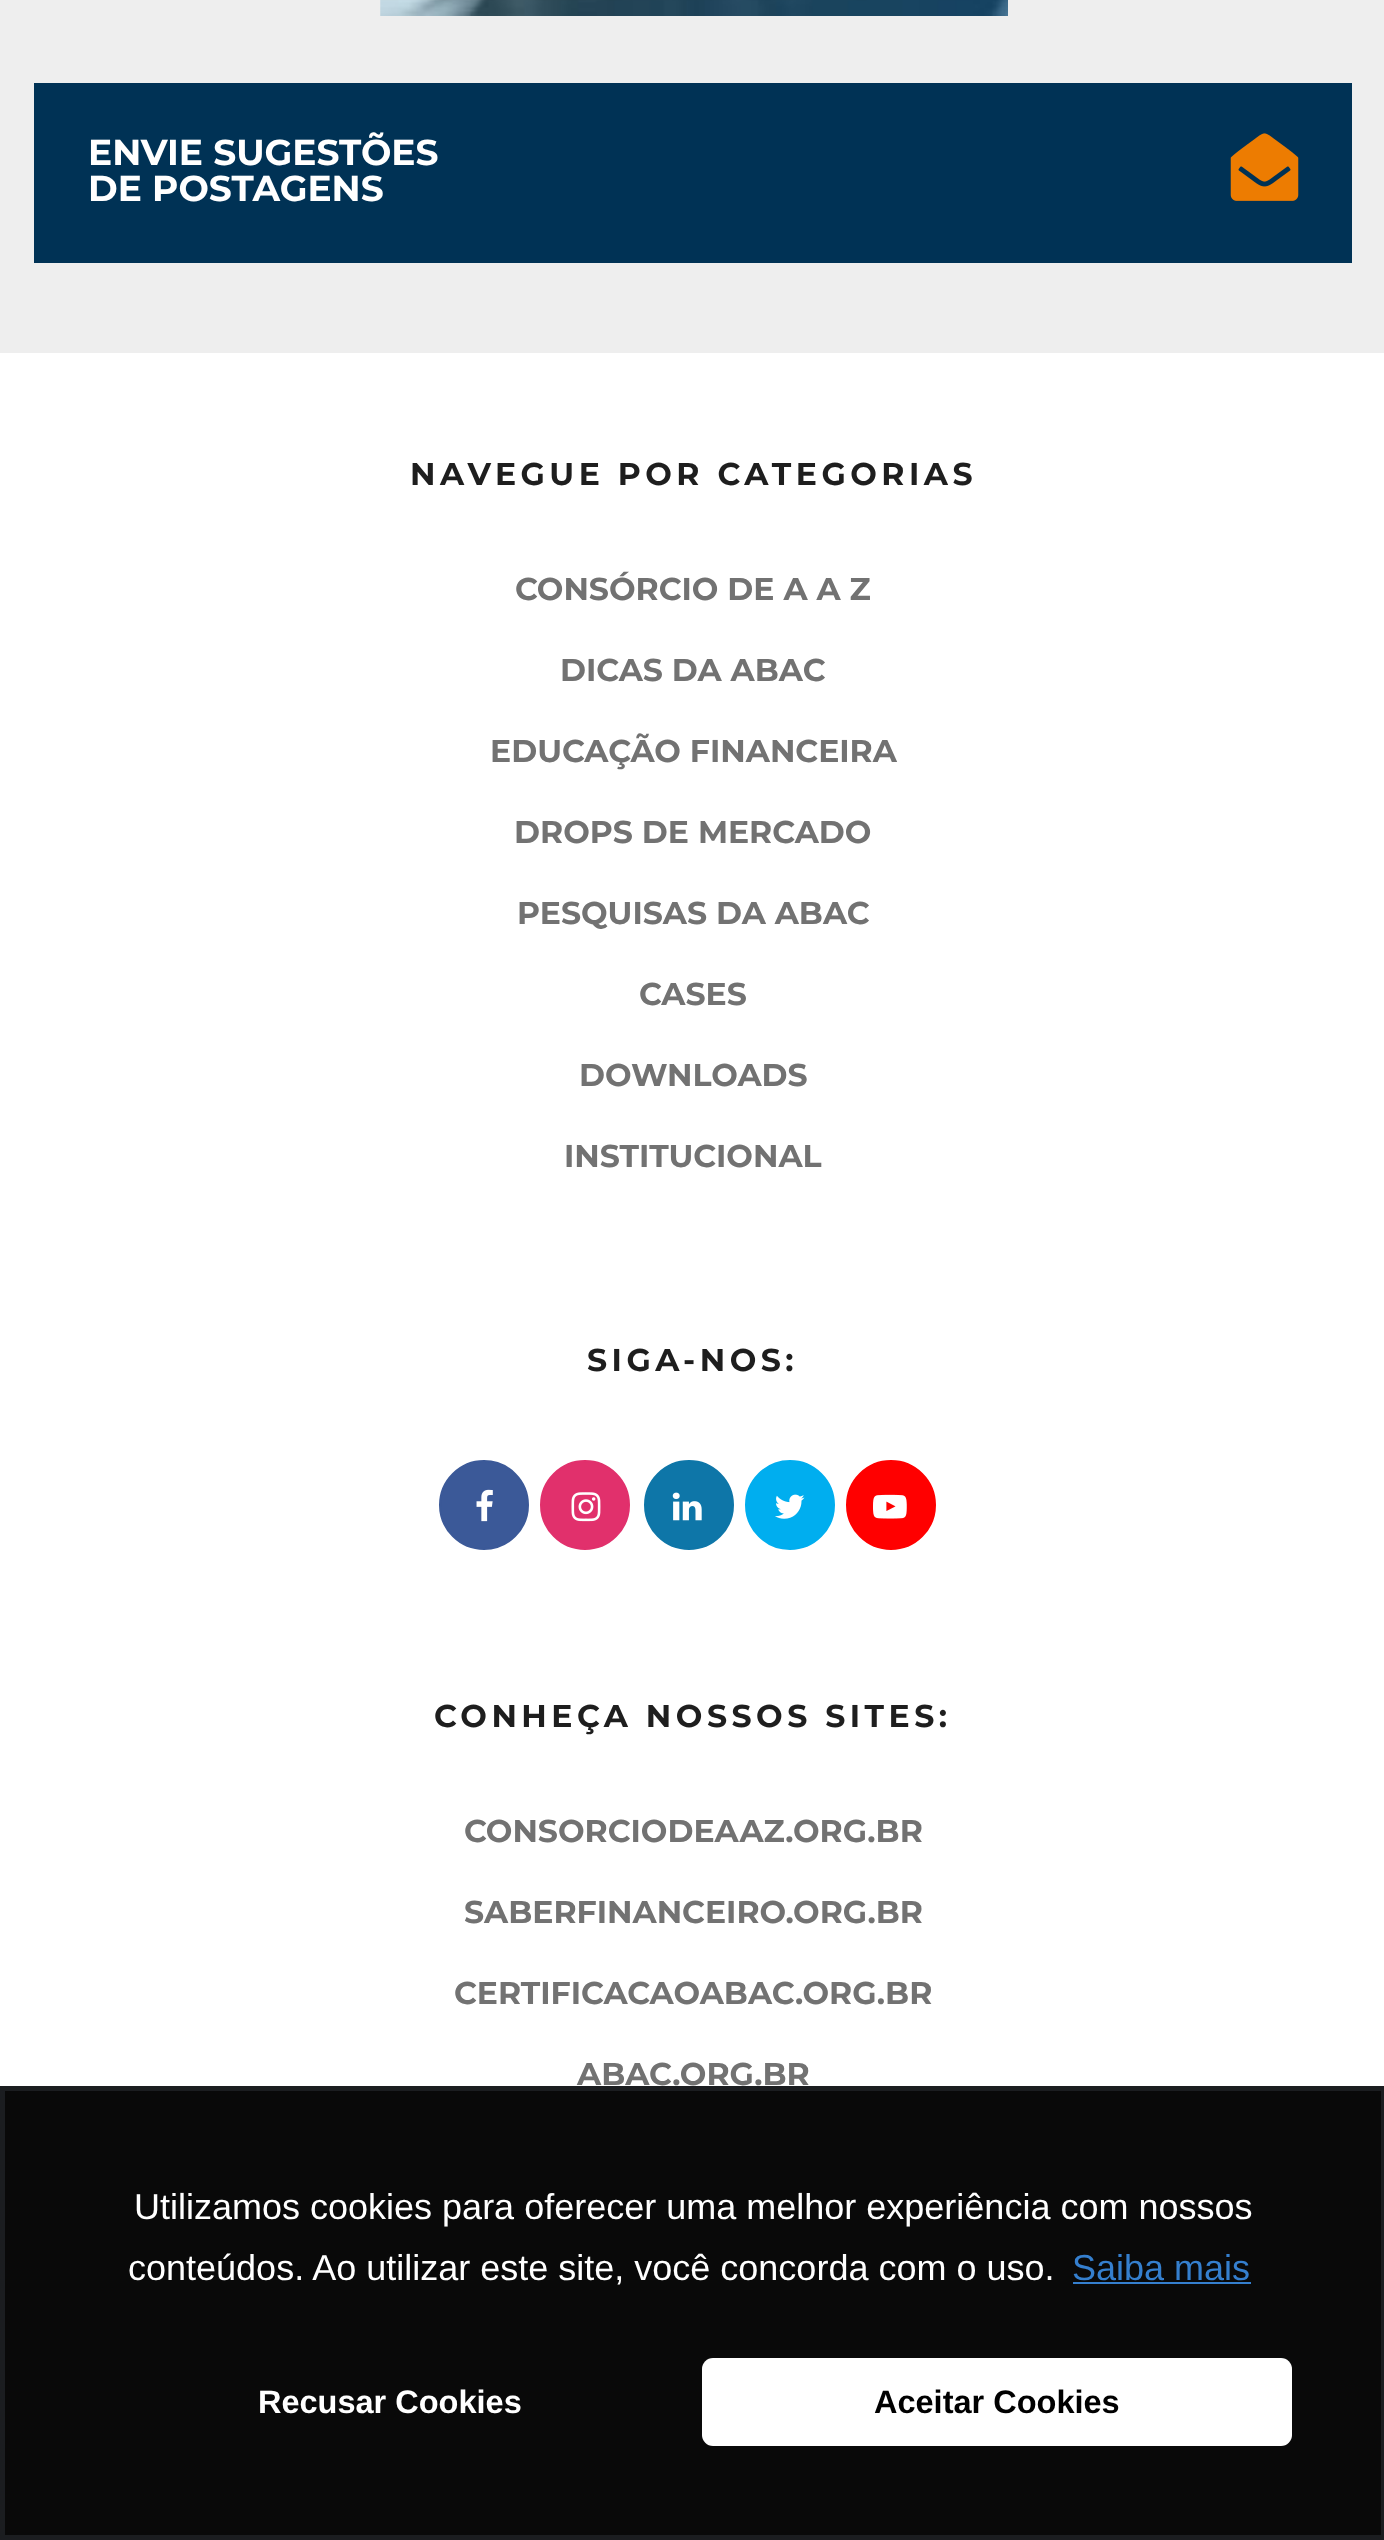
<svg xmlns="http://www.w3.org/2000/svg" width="1384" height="2540">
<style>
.a{font:bold 36px Montserrat;fill:#fff}
.b{font:bold 31.5px Montserrat;letter-spacing:4.5px;fill:#1e1e1e}
.c{font:bold 31.5px Montserrat;fill:#727272}
.d{font:36px Liberation Sans;fill:#fff}
.e{font:36px Liberation Sans;fill:#357fce}
.f{font:bold 32.5px Liberation Sans;fill:#fff}
.g{font:bold 32.5px Liberation Sans;fill:#000}
</style>
<rect width="100%" height="100%" fill="#eee"/>
<image href="1.png" x="380" y="0" width="628" height="16"/>
<path fill="#003255" d="M34 83h1318v180H34z"/>
<image href="2.png" x="1230" y="133" width="69" height="68"/>
<path fill="#fff" d="M0 353h1384v1733H0z"/>
<circle fill="#3b5998" stroke="#3b5998" stroke-width="2" cx="484" cy="1505" r="44"/>
<image href="3.png" x="476" y="1489" width="17" height="33"/>
<circle fill="#e1306c" stroke="#e1306c" stroke-width="2" cx="585" cy="1505" r="44"/>
<image href="4.png" x="571" y="1492" width="30" height="30"/>
<circle fill="#0e76a8" stroke="#0e76a8" stroke-width="2" cx="689" cy="1505" r="44"/>
<image href="5.png" x="672" y="1492" width="30" height="29"/>
<circle fill="#00aeef" stroke="#00aeef" stroke-width="2" cx="790" cy="1505" r="44"/>
<image href="6.png" x="775" y="1494" width="30" height="25"/>
<circle fill="#f00" stroke="#f00" stroke-width="2" cx="891" cy="1505" r="44"/>
<image href="7.png" x="873" y="1494" width="34" height="25"/>
<path fill="#090909" stroke="#1b1d20" stroke-width="5" d="M2.5 2088.5h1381v449H2.5z"/>
<path fill="#357fce" d="M1073 2282h178v2H1073z"/>
<rect fill="#fff" x="702" y="2358" width="590" height="88" rx="11"/>
<text class="a" x="88" y="165">ENVIE SUGESTÕES</text>
<text class="a" x="88" y="201">DE POSTAGENS</text>
<text class="b" x="410" y="485">NAVEGUE POR CATEGORIAS</text>
<text class="c" x="515" y="600">CONSÓRCIO DE A A Z</text>
<text class="c" x="560" y="681">DICAS DA ABAC</text>
<text class="c" x="490" y="762">EDUCAÇÃO FINANCEIRA</text>
<text class="c" x="514" y="843">DROPS DE MERCADO</text>
<text class="c" x="517" y="924">PESQUISAS DA ABAC</text>
<text class="c" x="639" y="1005">CASES</text>
<text class="c" x="579" y="1086">DOWNLOADS</text>
<text class="c" x="564" y="1167">INSTITUCIONAL</text>
<text class="b" x="587" y="1371">SIGA-NOS:</text>
<text class="b" x="434" y="1727">CONHEÇA NOSSOS SITES:</text>
<text class="c" x="464" y="1842">CONSORCIODEAAZ.ORG.BR</text>
<text class="c" x="464" y="1923">SABERFINANCEIRO.ORG.BR</text>
<text class="c" x="454" y="2004">CERTIFICACAOABAC.ORG.BR</text>
<text class="c" x="577" y="2085">ABAC.ORG.BR</text>
<text class="d" x="134" y="2219">Utilizamos cookies para oferecer uma melhor experiência com nossos</text>
<text class="d" x="128" y="2280">conteúdos. Ao utilizar este site, você concorda com o uso.</text>
<text class="e" x="1072" y="2280">Saiba mais</text>
<text class="f" x="258" y="2413">Recusar Cookies</text>
<text class="g" x="874" y="2413">Aceitar Cookies</text>
</svg>
